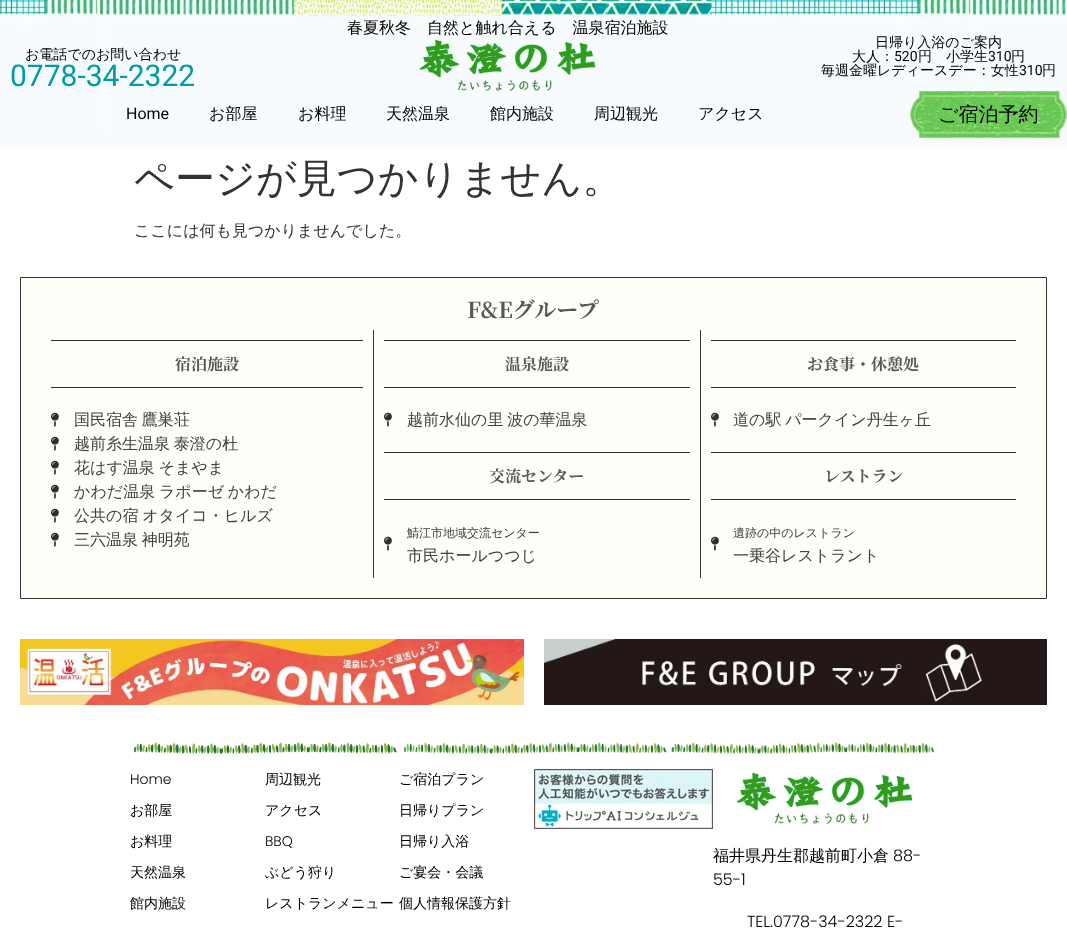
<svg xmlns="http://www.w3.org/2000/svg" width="1067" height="938">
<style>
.a{font:500 16px WenQuanYi Zen Hei;fill:#000}
.b{font:500 14px WenQuanYi Zen Hei;fill:#000}
.c{font:30px Roboto;fill:#009aa8}
.d{font:14px Roboto;fill:#000}
.e{font:16px Roboto;fill:#000}
.f{font:500 20px WenQuanYi Zen Hei;fill:#000}
.g{font:500 40px WenQuanYi Zen Hei;fill:#333}
.h{font:500 16px WenQuanYi Zen Hei;fill:#333}
.i{font:bold 22px Noto Serif JP;fill:#575757}
.j{font:bold 16px Noto Serif JP;fill:#575757}
.k{font:500 16px WenQuanYi Zen Hei;fill:#414141}
.l{font:500 12px WenQuanYi Zen Hei;fill:#414141}
.m{font:300 14px Poppins;fill:#000}
.n{font:300 16px Poppins;fill:#000}
</style>
<rect width="100%" height="100%" fill="#fff"/>
<image href="1.png" x="0" y="0" width="1067" height="147"/>
<image href="2.png" x="419" y="39" width="177" height="52"/>
<image href="3.png" x="910" y="91" width="157" height="48"/>
<path fill="#fffdf8" stroke="#333" d="M20.5 277.5h1026v321H20.5z"/>
<path fill="#333" d="M51 340h312v1H51z"/>
<path fill="#333" d="M51 387h312v1H51z"/>
<image href="4.png" x="51" y="412" width="8" height="15"/>
<image href="4.png" x="51" y="436" width="8" height="15"/>
<image href="4.png" x="51" y="460" width="8" height="15"/>
<image href="4.png" x="51" y="484" width="8" height="15"/>
<image href="4.png" x="51" y="508" width="8" height="15"/>
<image href="4.png" x="51" y="532" width="8" height="15"/>
<path fill="#333" d="M373 330h1v248H373z"/>
<path fill="#333" d="M384 340h306v1H384z"/>
<path fill="#333" d="M384 387h306v1H384z"/>
<image href="4.png" x="384" y="412" width="8" height="15"/>
<path fill="#333" d="M384 452h306v1H384z"/>
<path fill="#333" d="M384 499h306v1H384z"/>
<image href="4.png" x="384" y="536" width="8" height="15"/>
<path fill="#333" d="M700 330h1v248H700z"/>
<path fill="#333" d="M711 340h305v1H711z"/>
<path fill="#333" d="M711 387h305v1H711z"/>
<image href="4.png" x="711" y="412" width="8" height="15"/>
<path fill="#333" d="M711 452h305v1H711z"/>
<path fill="#333" d="M711 499h305v1H711z"/>
<image href="4.png" x="711" y="536" width="8" height="15"/>
<image href="5.png" x="20" y="639" width="504" height="66"/>
<image href="6.png" x="544" y="639" width="503" height="66"/>
<image href="7.png" x="134" y="742" width="800" height="12"/>
<image href="8.png" x="534" y="769" width="179" height="60"/>
<image href="9.png" x="736" y="772" width="177" height="52"/>
<text class="a" x="347" y="33">春夏秋冬　自然と触れ合える　温泉宿泊施設</text>
<text class="b" x="25" y="59">お電話でのお問い合わせ</text>
<text class="c" x="10" y="86">0778-34-2322</text>
<text class="b" x="875" y="47">日帰り入浴のご案内</text>
<text class="b" x="852" y="61">大人：</text>
<text class="d" x="894" y="61">520</text>
<text class="b" x="918" y="61">円　小学生</text>
<text class="d" x="988" y="61">310</text>
<text class="b" x="1011" y="61">円</text>
<text class="b" x="821" y="75">毎週金曜レディースデー：女性</text>
<text class="d" x="1019" y="75">310</text>
<text class="b" x="1042" y="75">円</text>
<text class="e" x="126" y="119">Home</text>
<text class="a" x="209" y="119">お部屋</text>
<text class="a" x="298" y="119">お料理</text>
<text class="a" x="386" y="119">天然温泉</text>
<text class="a" x="490" y="119">館内施設</text>
<text class="a" x="594" y="119">周辺観光</text>
<text class="a" x="698" y="119">アクセス</text>
<text class="f" x="938" y="121">ご宿泊予約</text>
<text class="g" x="134" y="192">ページが見つかりません。</text>
<text class="h" x="134" y="236">ここには何も見つかりませんでした。</text>
<text class="i" x="467" y="318">F&amp;Eグループ</text>
<text class="j" x="175" y="370">宿泊施設</text>
<text class="k" x="74" y="425" word-spacing="-1">国民宿舎 鷹巣荘</text>
<text class="k" x="74" y="449" word-spacing="-1">越前糸生温泉 泰澄の杜</text>
<text class="k" x="74" y="473" word-spacing="-1">花はす温泉 そまやま</text>
<text class="k" x="74" y="497" word-spacing="-1">かわだ温泉 ラポーゼ かわだ</text>
<text class="k" x="74" y="521" word-spacing="-1">公共の宿 オタイコ・ヒルズ</text>
<text class="k" x="74" y="545" word-spacing="-1">三六温泉 神明苑</text>
<text class="j" x="505" y="370">温泉施設</text>
<text class="k" x="407" y="425" word-spacing="-1">越前水仙の里 波の華温泉</text>
<text class="j" x="489" y="482">交流センター</text>
<text class="l" x="407" y="537">鯖江市地域交流センター</text>
<text class="k" x="407" y="561">市民ホールつつじ</text>
<text class="j" x="807" y="370">お食事・休憩処</text>
<text class="k" x="733" y="425" word-spacing="-1">道の駅 パークイン丹生ヶ丘</text>
<text class="j" x="824" y="482">レストラン</text>
<text class="l" x="733" y="537">遺跡の中のレストラン</text>
<text class="k" x="733" y="561">一乗谷レストラント</text>
<text class="m" x="130" y="784">Home</text>
<text class="b" x="130" y="815">お部屋</text>
<text class="b" x="130" y="846">お料理</text>
<text class="b" x="130" y="877">天然温泉</text>
<text class="b" x="130" y="908">館内施設</text>
<text class="b" x="265" y="784">周辺観光</text>
<text class="b" x="265" y="815">アクセス</text>
<text class="m" x="265" y="846">BBQ</text>
<text class="b" x="265" y="877">ぶどう狩り</text>
<text class="b" x="265" y="908">レストランメニュー</text>
<text class="b" x="399" y="784">ご宿泊プラン</text>
<text class="b" x="399" y="815">日帰りプラン</text>
<text class="b" x="399" y="846">日帰り入浴</text>
<text class="b" x="399" y="877">ご宴会・会議</text>
<text class="b" x="399" y="908">個人情報保護方針</text>
<text class="a" x="713" y="861">福井県丹生郡越前町小倉</text>
<text class="n" x="893" y="861">88-</text>
<text class="n" x="713" y="885">55-1</text>
<text class="n" x="747" y="927">TEL.0778-34-2322 E-</text>
</svg>
